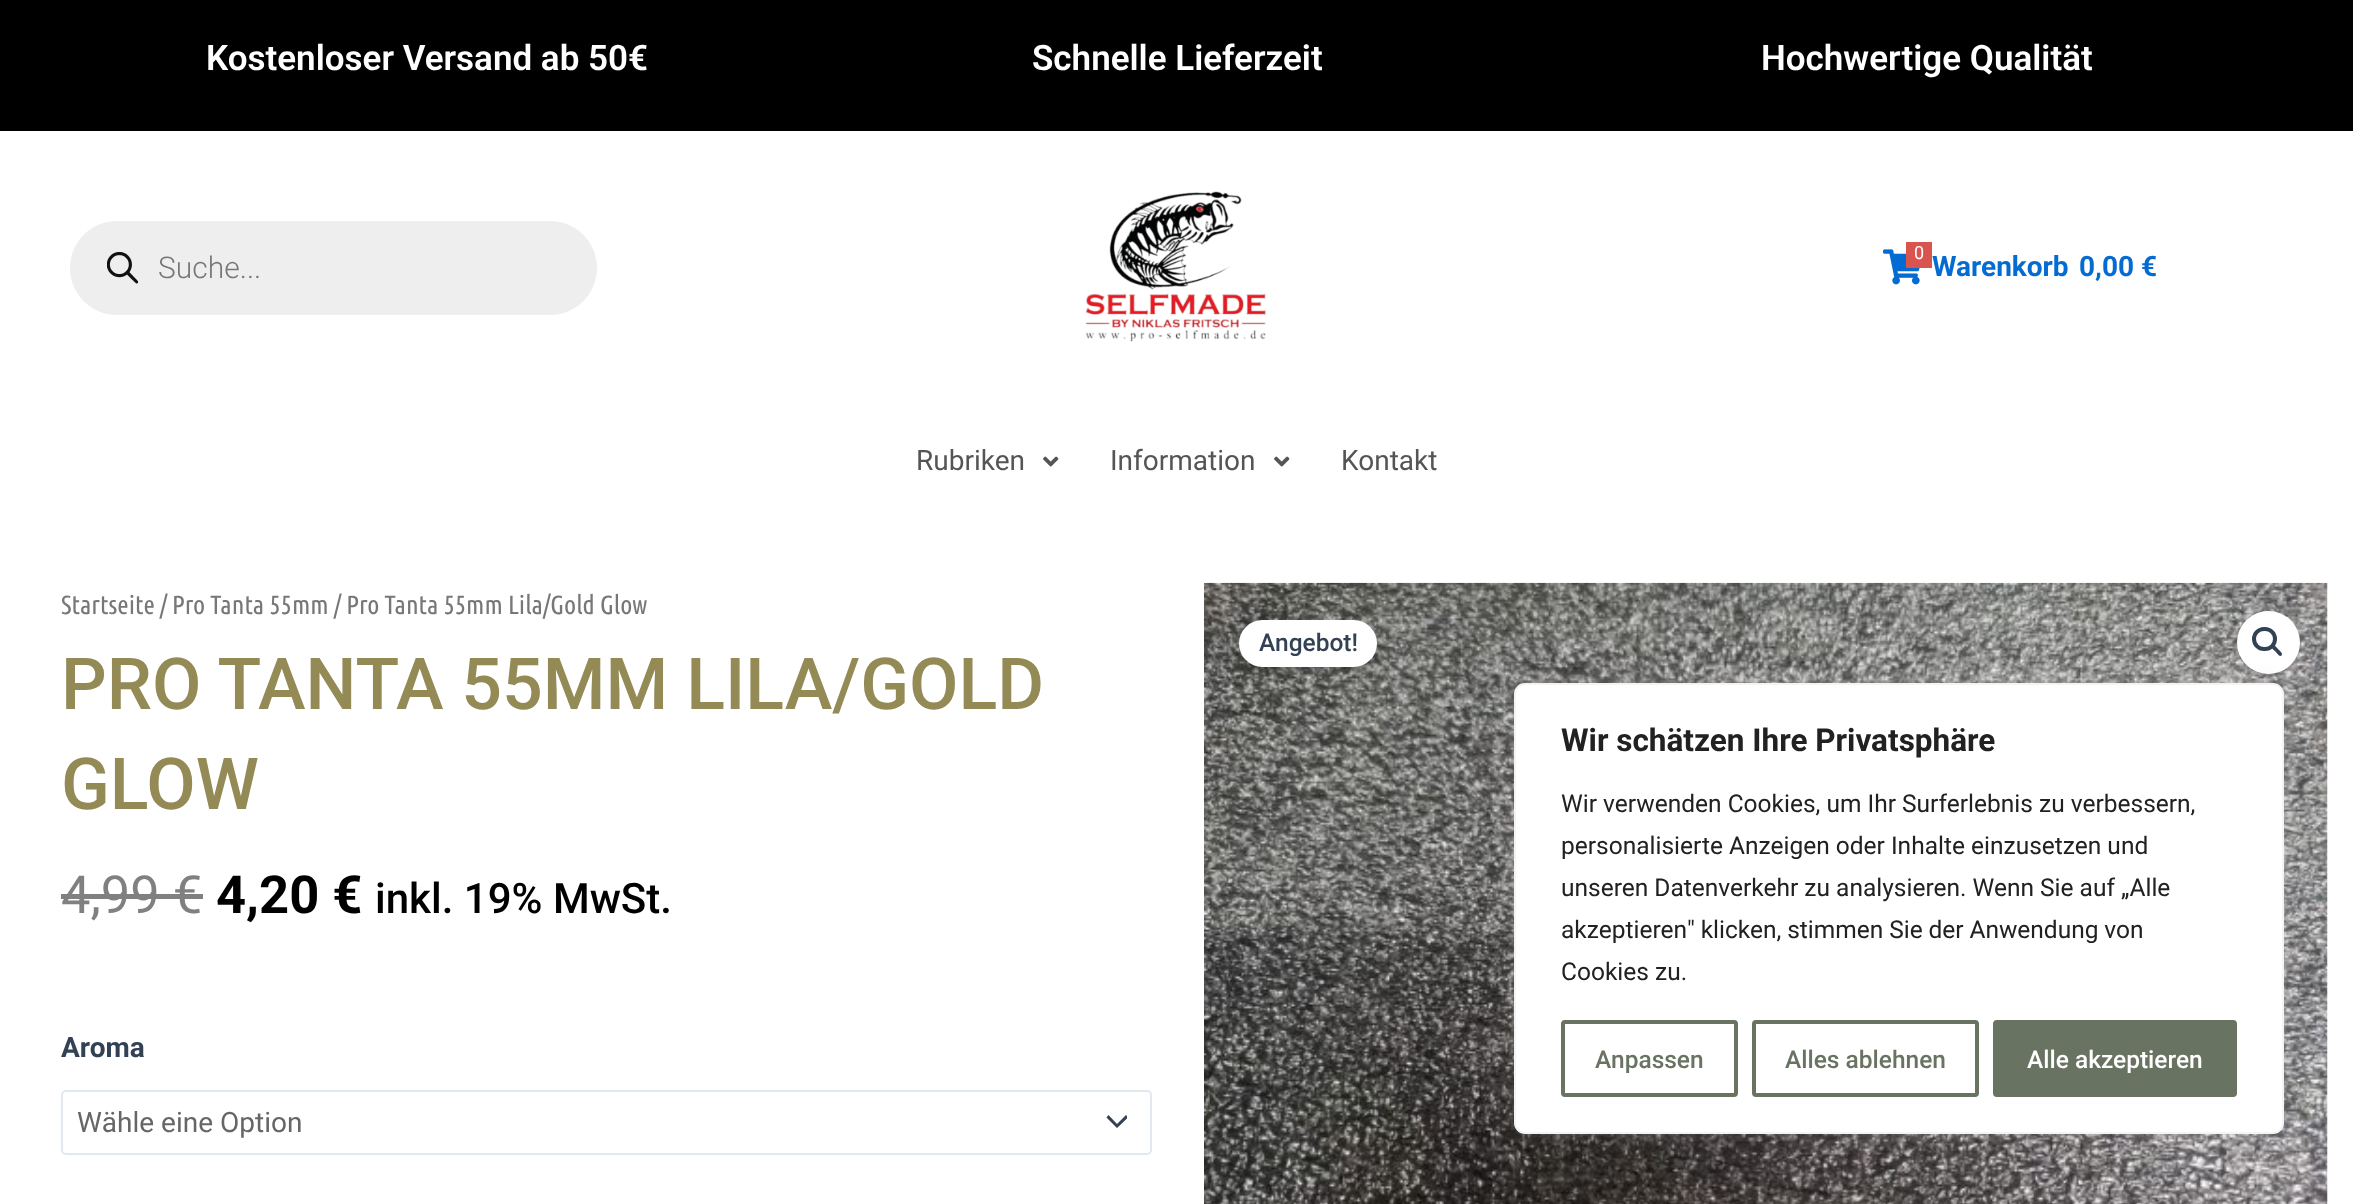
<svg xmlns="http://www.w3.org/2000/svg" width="2353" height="1204">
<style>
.a{font:600 35px Roboto;fill:#fff}
.b{font:300 30px Roboto;fill:#777}
.c{font:18px Roboto;fill:#fff}
.d{font:bold 28px Roboto;fill:#046bd2}
.e{font:28px Roboto;fill:#555}
.f{font:26.25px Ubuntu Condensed;fill:#777}
.g{font:500 71.75px Roboto;fill:#938a56}
.h{font:52.5px Roboto;fill:#808080}
.i{font:bold 52.5px Roboto;fill:#000}
.j{font:500 42px Roboto;fill:#000}
.k{font:bold 28px Roboto;fill:#334155}
.l{font:28px Roboto;fill:#666}
.m{font:500 24.5px Roboto;fill:#334155}
.n{font:bold 31.5px Roboto;fill:#212121}
.o{font:24.5px Roboto;fill:#212121}
.p{font:500 24.5px Roboto;fill:#687362}
.q{font:500 24.5px Roboto;fill:#fff}
</style>
<defs>
<clipPath id="clip1"><path d="M1106 1115h21v14H1106z"/></clipPath>
</defs>
<rect width="100%" height="100%" fill="#fff"/>
<path fill="#000" d="M0 0h2353v131H0z"/>
<rect fill="#eee" x="70" y="221" width="527" height="94" rx="47"/>
<image href="1.png" x="107" y="252" width="31" height="32"/>
<image href="2.png" x="1085" y="191" width="181" height="151"/>
<image href="3.png" x="1883" y="249" width="37" height="36"/>
<path fill="#d9534f" d="M1906 242h26v26H1906z"/>
<image href="4.png" x="1043" y="456" width="16" height="11"/>
<image href="4.png" x="1274" y="456" width="16" height="11"/>
<path fill="#808080" d="M61 894h142v5H61z"/>
<g clip-path="url(#clip1)">
<path fill="#334155" d="M1106.5 1117.5l10.5 10.5l11-10.5l-2-2.5l-9 9l-8.5-9z"/>
</g>
<rect fill="none" stroke="#e2e8f0" stroke-width="2" x="62" y="1091" width="1089" height="63" rx="4"/>
<image href="5.png" x="1204" y="582" width="1124" height="622"/>
<circle fill="#fff" cx="2268.5" cy="642.5" r="31.5"/>
<rect fill="none" stroke="#334155" stroke-width="4" x="2254" y="629" width="21" height="20" rx="10"/>
<path fill="#334155" d="M2272 645.5c2-2 5 2.5 6 3.5c1 1 5.5 4.5 3.5 6.5c-2 2-5-3-6-4c-1-1-5.5-4-3.5-6z"/>
<rect fill="#00000026" filter="blur(3.5px)" x="1239" y="627" width="138" height="47" rx="23.5"/>
<rect fill="#fff" x="1239" y="620" width="138" height="47" rx="23.5"/>
<rect fill="#acabab4d" filter="blur(9px)" x="1514" y="681" width="770" height="451" rx="11"/>
<rect fill="#fff" stroke="#f4f4f4" stroke-width="2" x="1515" y="684" width="768" height="449" rx="10"/>
<rect fill="none" stroke="#687362" stroke-width="4" x="1563" y="1022" width="173" height="73" rx="2"/>
<rect fill="none" stroke="#687362" stroke-width="4" x="1754" y="1022" width="223" height="73" rx="2"/>
<rect fill="#687362" stroke="#687362" stroke-width="4" x="1995" y="1022" width="240" height="73" rx="2"/>
<text class="a" x="206" y="70">Kostenloser Versand ab 50€</text>
<text class="a" x="1032" y="70">Schnelle Lieferzeit</text>
<text class="a" x="1761" y="70">Hochwertige Qualität</text>
<text class="b" x="158" y="278">Suche...</text>
<text class="c" x="1914" y="259">0</text>
<text class="d" x="1932" y="276">Warenkorb</text>
<text class="d" x="2079" y="276">0,00 €</text>
<text class="e" x="916" y="470">Rubriken</text>
<text class="e" x="1110" y="470">Information</text>
<text class="e" x="1341" y="470">Kontakt</text>
<text class="f" x="61" y="614">Startseite</text>
<text class="f" x="160" y="614">/</text>
<text class="f" x="172" y="614">Pro Tanta 55mm</text>
<text class="f" x="334" y="614">/ Pro Tanta 55mm Lila/Gold Glow</text>
<text class="g" x="61" y="709">PRO TANTA 55MM LILA/GOLD</text>
<text class="g" x="61" y="809">GLOW</text>
<text class="h" x="61" y="913">4,99 €</text>
<text class="i" x="216" y="913">4,20 €</text>
<text class="j" x="375" y="913">inkl. 19% MwSt.</text>
<text class="k" x="61" y="1057">Aroma</text>
<text class="l" x="77" y="1132">Wähle eine Option</text>
<text class="m" x="1259" y="651">Angebot!</text>
<text class="n" x="1561" y="751">Wir schätzen Ihre Privatsphäre</text>
<text class="o" x="1561" y="812">Wir verwenden Cookies, um Ihr Surferlebnis zu verbessern,</text>
<text class="o" x="1561" y="854">personalisierte Anzeigen oder Inhalte einzusetzen und</text>
<text class="o" x="1561" y="896">unseren Datenverkehr zu analysieren. Wenn Sie auf „Alle</text>
<text class="o" x="1561" y="938" word-spacing="-0.25">akzeptieren" klicken, stimmen Sie der Anwendung von</text>
<text class="o" x="1561" y="980">Cookies zu.</text>
<text class="p" x="1595" y="1068">Anpassen</text>
<text class="p" x="1785" y="1068">Alles ablehnen</text>
<text class="q" x="2027" y="1068">Alle akzeptieren</text>
</svg>
